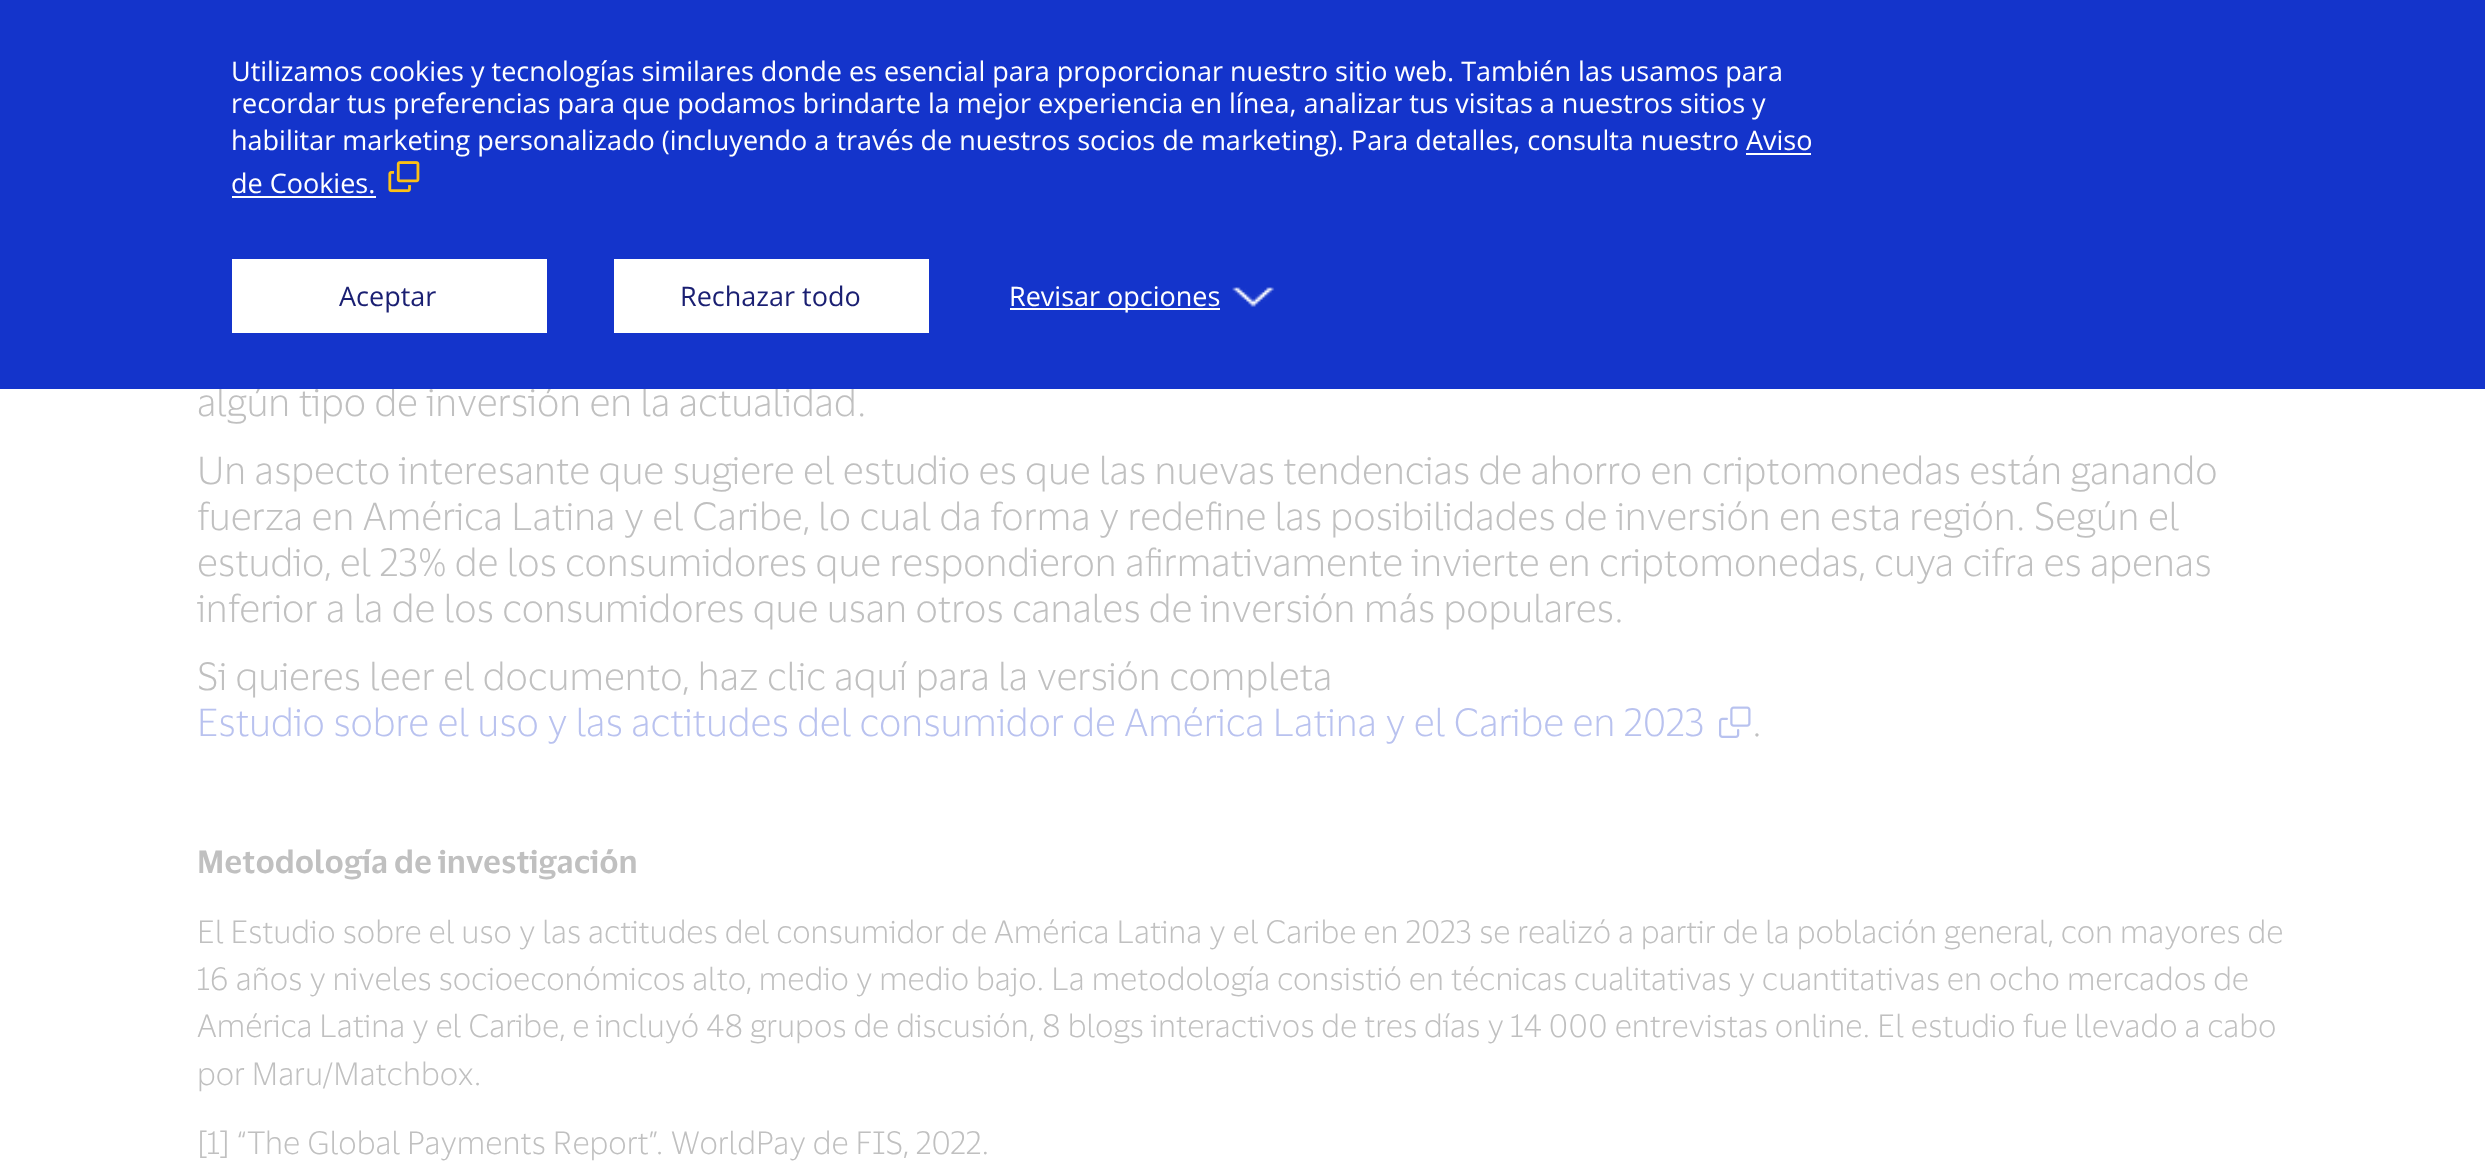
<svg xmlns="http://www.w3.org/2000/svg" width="2485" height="1167">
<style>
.a{font:300 38.25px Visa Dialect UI;fill:#c0c0c0}
.b{font:27px Open Sans;fill:#fff}
.c{font:27px Open Sans;fill:#1a1f72}
.d{font:300 38.25px Visa Dialect UI;fill:#b9c2ef}
.e{font:600 31.5px Visa Dialect UI;fill:#c0c0c0}
.f{font:300 31.5px Visa Dialect UI;fill:#c0c0c0}
</style>
<rect width="100%" height="100%" fill="#fff"/>
<image href="3.png" x="1719" y="706" width="32" height="32"/>
<text class="a" x="197" y="416">algún tipo de inversión en la actualidad.</text>
<path fill="#1434cb" d="M0 0h2485v389H0z"/>
<image href="2.png" x="1232" y="287" width="43" height="20"/>
<path fill="#fff" d="M1010 308h210v2H1010z"/>
<text class="b" x="1009" y="306">Revisar opciones</text>
<path fill="#fff" d="M614 259h315v74H614z"/>
<text class="c" x="680" y="306">Rechazar todo</text>
<path fill="#fff" d="M232 259h315v74H232z"/>
<text class="c" x="339" y="306">Aceptar</text>
<image href="1.png" x="388" y="161" width="32" height="32"/>
<text class="b" x="231" y="193">de Cookies.</text>
<path fill="#fff" d="M232 196h144v2H232z"/>
<path fill="#fff" d="M1746 153h65v2H1746z"/>
<text class="b" x="231" y="150">habilitar marketing personalizado (incluyendo a través de nuestros socios de marketing). Para detalles, consulta nuestro Aviso</text>
<text class="b" x="231" y="113">recordar tus preferencias para que podamos brindarte la mejor experiencia en línea, analizar tus visitas a nuestros sitios y</text>
<text class="b" x="231" y="81">Utilizamos cookies y tecnologías similares donde es esencial para proporcionar nuestro sitio web. También las usamos para</text>
<text class="a" x="197" y="484">Un aspecto interesante que sugiere el estudio es que las nuevas tendencias de ahorro en criptomonedas están ganando</text>
<text class="a" x="197" y="530">fuerza en América Latina y el Caribe, lo cual da forma y redefine las posibilidades de inversión en esta región. Según el</text>
<text class="a" x="197" y="576">estudio, el 23% de los consumidores que respondieron afirmativamente invierte en criptomonedas, cuya cifra es apenas</text>
<text class="a" x="197" y="622">inferior a la de los consumidores que usan otros canales de inversión más populares.</text>
<text class="a" x="197" y="690">Si quieres leer el documento, haz clic aquí para la versión completa</text>
<text class="d" x="197" y="736">Estudio sobre el uso y las actitudes del consumidor de América Latina y el Caribe en 2023</text>
<text class="a" x="1752" y="736">.</text>
<text class="e" x="197" y="873">Metodología de investigación</text>
<text class="f" x="197" y="943">El Estudio sobre el uso y las actitudes del consumidor de América Latina y el Caribe en 2023 se realizó a partir de la población general, con mayores de</text>
<text class="f" x="197" y="990">16 años y niveles socioeconómicos alto, medio y medio bajo. La metodología consistió en técnicas cualitativas y cuantitativas en ocho mercados de</text>
<text class="f" x="197" y="1037">América Latina y el Caribe, e incluyó 48 grupos de discusión, 8 blogs interactivos de tres días y 14 000 entrevistas online. El estudio fue llevado a cabo</text>
<text class="f" x="197" y="1085">por Maru/Matchbox.</text>
<text class="f" x="197" y="1154">[1] “The Global Payments Report”. WorldPay de FIS, 2022.</text>
</svg>
